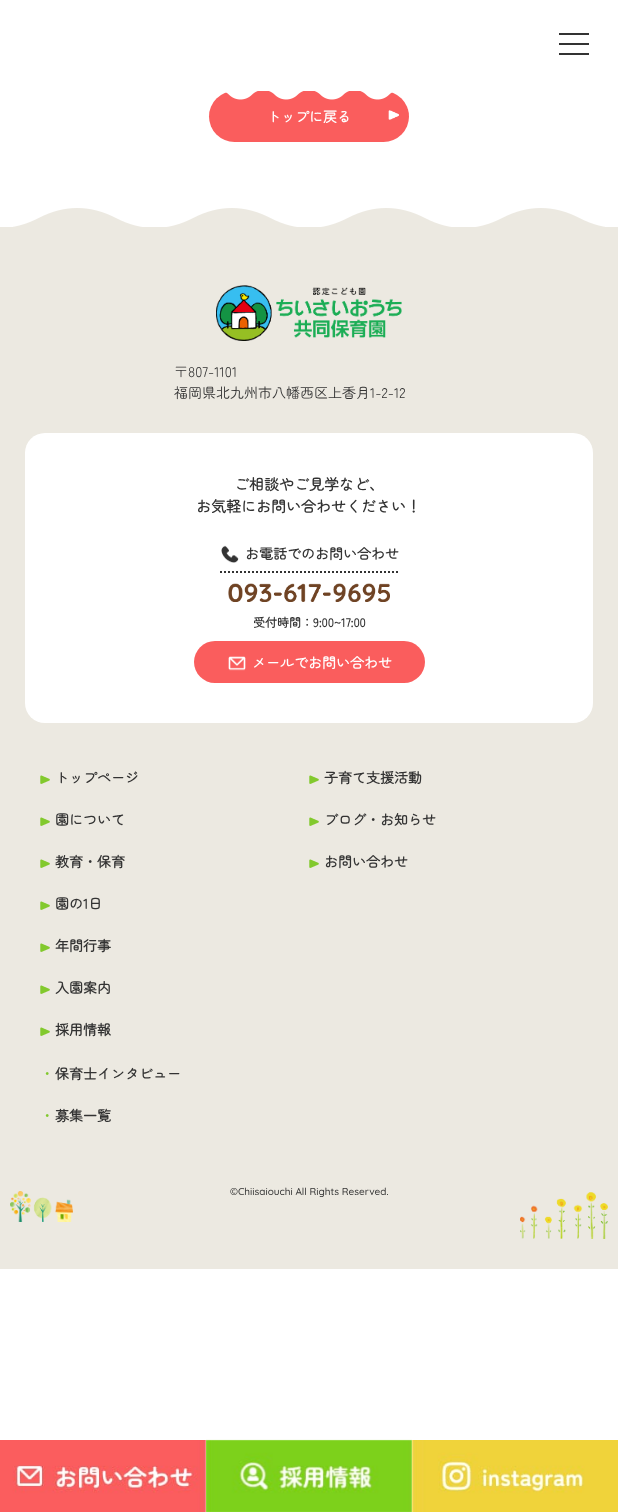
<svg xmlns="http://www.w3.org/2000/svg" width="618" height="1512">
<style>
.a{font:bold 14px Zen Maru Gothic;fill:#fff}
.b{font:14px Zen Maru Gothic;fill:#333}
.c{font:bold 15px Zen Maru Gothic;fill:#333}
.d{font:bold 14px Zen Maru Gothic;fill:#333}
.e{font:bold 12px Zen Maru Gothic;fill:#333}
.f{font:bold 14px Zen Maru Gothic;fill:#82c92d}
.g{font:300 10px Quicksand;fill:#333}
</style>
<rect width="100%" height="100%" fill="#fff"/>
<rect fill="#fa5d5d" x="209" y="91" width="200" height="51" rx="25.5"/>
<image href="1.png" x="101" y="37" width="407" height="63"/>
<path fill="#333" d="M559 33h30v2H559z"/>
<path fill="#333" d="M559 43h30v2H559z"/>
<path fill="#333" d="M559 53h30v2H559z"/>
<image href="2.png" x="388" y="110" width="11" height="10"/>
<image href="3.png" x="13" y="208" width="592" height="19"/>
<path fill="#ece9e1" d="M0 227h618v1042H0z"/>
<image href="4.png" x="216" y="285" width="186" height="56"/>
<rect fill="#fff" x="25" y="433" width="568" height="290" rx="20"/>
<path fill="none" stroke="#333" stroke-width="2" stroke-dasharray="2 2" d="M220 572h179"/>
<image href="5.png" x="221" y="545" width="18" height="18"/>
<image href="6.png" x="228" y="583" width="162" height="19"/>
<rect fill="#fa5d5d" x="194" y="641" width="231" height="42" rx="21"/>
<image href="7.png" x="228" y="656" width="18" height="15"/>
<image href="8.png" x="40" y="775" width="10" height="9"/>
<image href="8.png" x="40" y="817" width="10" height="9"/>
<image href="8.png" x="40" y="859" width="10" height="9"/>
<image href="8.png" x="40" y="901" width="10" height="9"/>
<image href="8.png" x="40" y="943" width="10" height="9"/>
<image href="8.png" x="40" y="985" width="10" height="9"/>
<image href="8.png" x="309" y="775" width="10" height="9"/>
<image href="8.png" x="309" y="817" width="10" height="9"/>
<image href="8.png" x="309" y="859" width="10" height="9"/>
<image href="8.png" x="40" y="1027" width="10" height="9"/>
<image href="9.png" x="10" y="1191" width="63" height="31"/>
<image href="10.png" x="520" y="1192" width="88" height="47"/>
<image href="11.png" x="0" y="1440" width="206" height="72"/>
<image href="12.png" x="206" y="1439" width="206" height="73"/>
<image href="13.png" x="412" y="1440" width="206" height="72"/>
<text class="a" x="267" y="122">トップに戻る</text>
<text class="b" x="174" y="377">〒807-1101</text>
<text class="b" x="174" y="398">福岡県北九州市八幡西区上香月1-2-12</text>
<text class="c" x="234" y="490">ご相談やご見学など、</text>
<text class="c" x="196" y="512">お気軽にお問い合わせください！</text>
<text class="d" x="245" y="559">お電話でのお問い合わせ</text>
<text class="e" x="253" y="627">受付時間：9:00~17:00</text>
<text class="a" x="252" y="668">メールでお問い合わせ</text>
<text class="d" x="55" y="783">トップページ</text>
<text class="d" x="55" y="825">園について</text>
<text class="d" x="55" y="867">教育・保育</text>
<text class="d" x="55" y="909">園の1日</text>
<text class="d" x="55" y="951">年間行事</text>
<text class="d" x="55" y="993">入園案内</text>
<text class="d" x="324" y="783">子育て支援活動</text>
<text class="d" x="324" y="825">ブログ・お知らせ</text>
<text class="d" x="324" y="867">お問い合わせ</text>
<text class="d" x="55" y="1035">採用情報</text>
<text class="f" x="40" y="1079">・</text>
<text class="d" x="55" y="1079">保育士インタビュー</text>
<text class="f" x="40" y="1121">・</text>
<text class="d" x="55" y="1121">募集一覧</text>
<text class="g" x="230" y="1195">©Chiisaiouchi All Rights Reserved.</text>
</svg>
